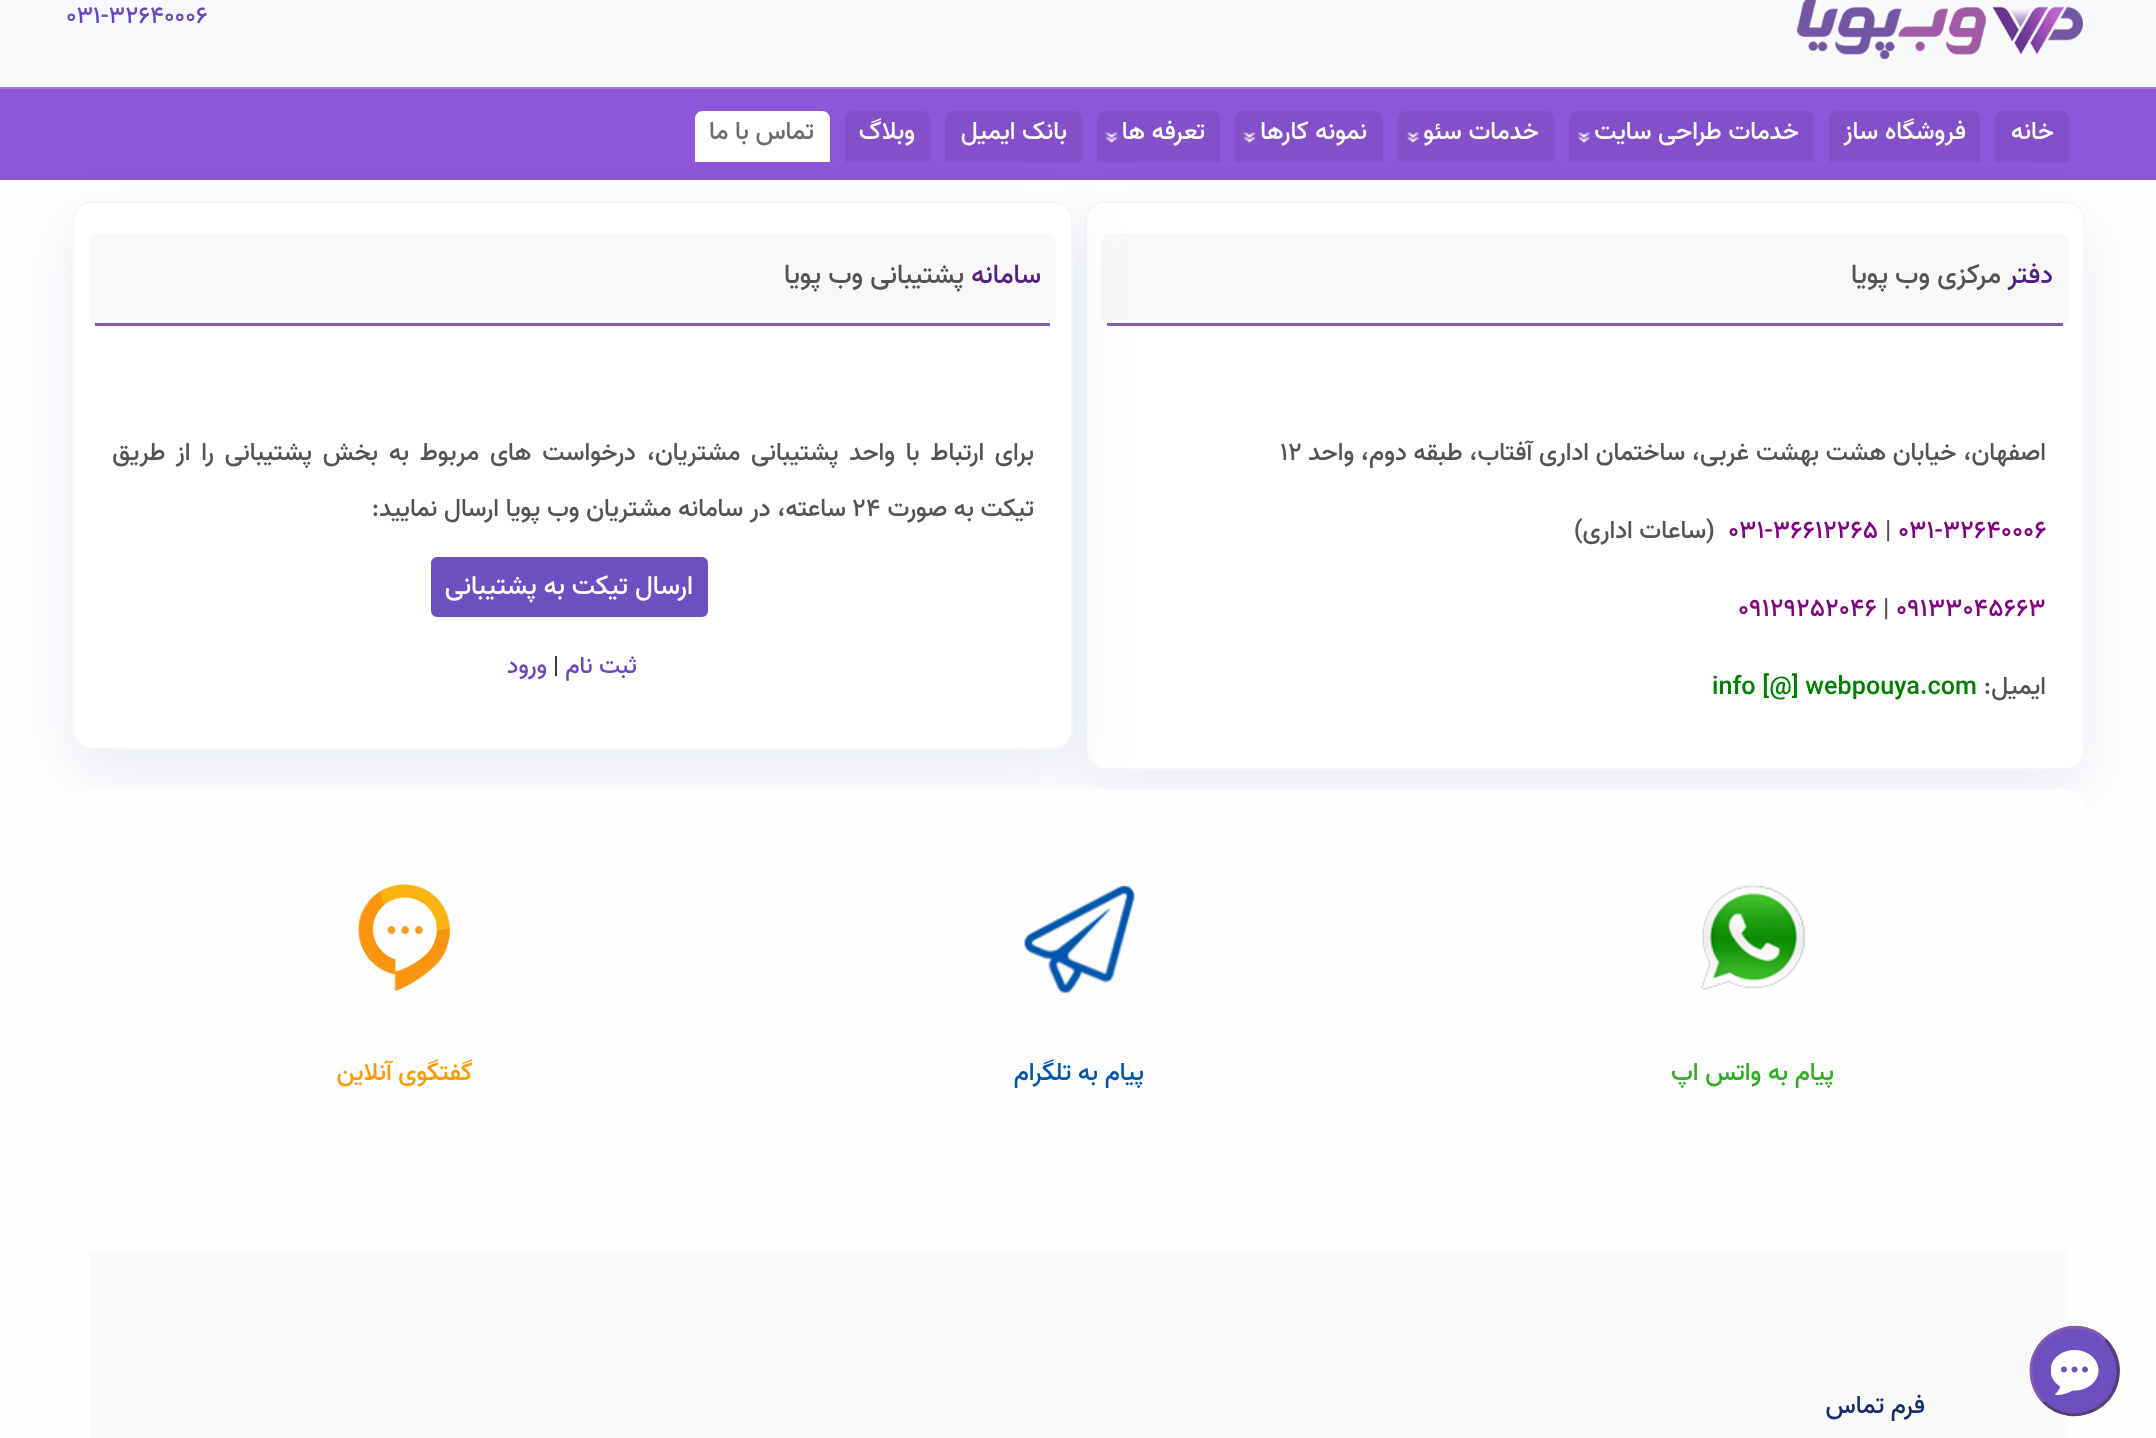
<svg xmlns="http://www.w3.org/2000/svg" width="2156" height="1438">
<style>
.a{font:500 24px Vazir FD;fill:#6a49bf}
.b{font:500 25.2px Vazir FD;direction:rtl;fill:#fff}
.c{font:500 25.2px Vazir FD;direction:rtl;fill:#6d6d6d}
.d{font:500 27px Vazir FD;direction:rtl;fill:#521f82}
.e{font:500 27px Vazir FD;direction:rtl;fill:#535353}
.f{font:500 25.2px Vazir FD;direction:rtl;fill:#535353}
.g{font:500 25.2px Vazir FD;fill:#535353}
.h{font:500 25.2px Vazir FD;fill:#800080}
.i{font:500 25.2px Vazir FD;fill:#008000}
.j{font:500 26.5px Vazir FD;direction:rtl;fill:#fff}
.k{font:500 24px Vazir FD;direction:rtl;fill:#6a49bf}
.l{font:500 24px Vazir FD;fill:#333}
.m{font:500 25.2px Vazir FD;direction:rtl;fill:#2fae1f}
.n{font:500 25.2px Vazir FD;direction:rtl;fill:#0056ac}
.o{font:500 25.2px Vazir FD;direction:rtl;fill:#f90}
.p{font:500 25.2px Vazir FD;direction:rtl;fill:#162d6d}
</style>
<rect width="100%" height="100%" fill="#fefefe"/>
<path fill="#f8f9fb" d="M0 0h2156v87H0z"/>
<image href="1.png" x="1797" y="0" width="286" height="59"/>
<path fill="#8e56d8" d="M0 89h2156v91H0z"/>
<path fill="#a178c8" d="M0 87h2156v2H0z"/>
<path fill="#8450c9" d="M2003 111h58c4.5 0 8 3.5 8 8v43h-74v-43c0-4.5 3.5-8 8-8z"/>
<path fill="#8450c9" d="M1837 111h135c4.5 0 8 3.5 8 8v43h-151v-43c0-4.5 3.5-8 8-8z"/>
<path fill="#8450c9" d="M1577 111h229c4.5 0 8 3.5 8 8v43h-245v-43c0-4.5 3.5-8 8-8z"/>
<image href="2.png" x="1577" y="131" width="14" height="13"/>
<path fill="#8450c9" d="M1406 111h140c4.5 0 8 3.5 8 8v43h-156v-43c0-4.5 3.5-8 8-8z"/>
<image href="2.png" x="1406" y="131" width="14" height="13"/>
<path fill="#8450c9" d="M1243 111h132c4.5 0 8 3.5 8 8v43h-148v-43c0-4.5 3.5-8 8-8z"/>
<image href="3.png" x="1243" y="131" width="13" height="13"/>
<path fill="#8450c9" d="M1105 111h107c4.5 0 8 3.5 8 8v43h-123v-43c0-4.5 3.5-8 8-8z"/>
<image href="3.png" x="1105" y="131" width="13" height="13"/>
<path fill="#8450c9" d="M953 111h121c4.5 0 8 3.5 8 8v43h-137v-43c0-4.5 3.5-8 8-8z"/>
<path fill="#8450c9" d="M853 111h69c4.5 0 8 3.5 8 8v43h-85v-43c0-4.5 3.5-8 8-8z"/>
<path fill="#fff" d="M703 111h119c4.5 0 8 3.5 8 8v43h-135v-43c0-4.5 3.5-8 8-8z"/>
<rect fill="#385da51a" filter="blur(30px)" x="1085" y="224" width="1000" height="568" rx="20"/>
<rect fill="#fff" stroke="#f6f6f6" stroke-width="2" x="1086" y="202" width="998" height="567" rx="19"/>
<rect fill="#f8f8f8" x="1101" y="233" width="968" height="93" rx="11"/>
<path fill="#855cac" d="M1107 323h956v3H1107z"/>
<rect fill="#385da51a" filter="blur(30px)" x="72" y="224" width="1001" height="549" rx="20"/>
<rect fill="#fff" stroke="#f6f6f6" stroke-width="2" x="73" y="202" width="999" height="547" rx="19"/>
<rect fill="#f8f8f8" x="89" y="233" width="967" height="93" rx="11"/>
<path fill="#855cac" d="M95 323h955v3H95z"/>
<rect fill="#6e4fbf" stroke="#6e4fbf" stroke-width="6" x="434" y="560" width="271" height="54" rx="3"/>
<rect fill="#fefefe" x="72" y="789" width="2013" height="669" rx="20"/>
<path fill="#fafafa" d="M90 1251h1977v187H90z"/>
<circle fill="#6e4fbf" cx="2075" cy="1371" r="45"/>
<path fill="none" stroke="#593d73" stroke-width="3" d="M2105.5 1340c6 6.5 10 14 11.5 22.5c8.5 42-43 69.5-73.5 39.5"/>
<path fill="none" stroke="#855cac" stroke-width="3" d="M2043.5 1402c-6-6.5-10-14-11.5-22.5c-8.5-42 43-69.5 73.5-39.5"/>
<image href="4.png" x="2051" y="1350" width="48" height="45"/>
<image href="5.png" x="1701" y="884" width="105" height="106"/>
<image href="6.png" x="1024" y="885" width="111" height="108"/>
<image href="7.png" x="358" y="884" width="92" height="108"/>
<text class="a" x="66" y="23">031-32640006</text>
<text class="b" x="2054" y="139">خانه</text>
<text class="b" x="1966" y="139">فروشگاه ساز</text>
<text class="b" x="1799" y="139">خدمات طراحی سایت</text>
<text class="b" x="1539" y="139">خدمات سئو</text>
<text class="b" x="1367" y="139">نمونه کارها</text>
<text class="b" x="1205" y="139">تعرفه ها</text>
<text class="b" x="1067" y="139">بانک ایمیل</text>
<text class="b" x="915" y="139">وبلاگ</text>
<text class="c" x="814" y="139">تماس با ما</text>
<text class="d" x="2053" y="283">دفتر</text>
<text class="e" x="2001" y="283">مرکزی وب پویا</text>
<text class="f" x="2046" y="460">اصفهان، خیابان هشت بهشت غربی، ساختمان اداری آفتاب، طبقه دوم، واحد</text>
<text class="g" x="1280" y="460">12</text>
<text class="h" x="1898" y="538">031-32640006</text>
<text class="g" x="1885" y="538">|</text>
<text class="h" x="1728" y="538">031-36612265</text>
<text class="f" x="1715" y="538">(ساعات اداری)</text>
<text class="h" x="1896" y="616">09133045663</text>
<text class="g" x="1883" y="616">|</text>
<text class="h" x="1738" y="616">09129252046</text>
<text class="f" x="2046" y="694">ایمیل:</text>
<text class="i" x="1712" y="694">info [@] webpouya.com</text>
<text class="d" x="1041" y="283">سامانه</text>
<text class="e" x="964" y="283">پشتیبانی وب پویا</text>
<text class="f" x="1034" y="460" word-spacing="4.1">برای ارتباط با واحد پشتیبانی مشتریان، درخواست های مربوط به بخش پشتیبانی را از طریق</text>
<text class="f" x="1034" y="516">تیکت به صورت</text>
<text class="g" x="852" y="516">24</text>
<text class="f" x="846" y="516">ساعته، در سامانه مشتریان وب پویا ارسال نمایید:</text>
<text class="j" x="693" y="594">ارسال تیکت به پشتیبانی</text>
<text class="k" x="637" y="673">ثبت نام</text>
<text class="l" x="553" y="673">|</text>
<text class="k" x="547" y="673">ورود</text>
<text class="m" x="1834" y="1080">پیام به واتس اپ</text>
<text class="n" x="1144" y="1080">پیام به تلگرام</text>
<text class="o" x="473" y="1080">گفتگوی آنلاین</text>
<text class="p" x="1925" y="1413">فرم تماس</text>
</svg>
